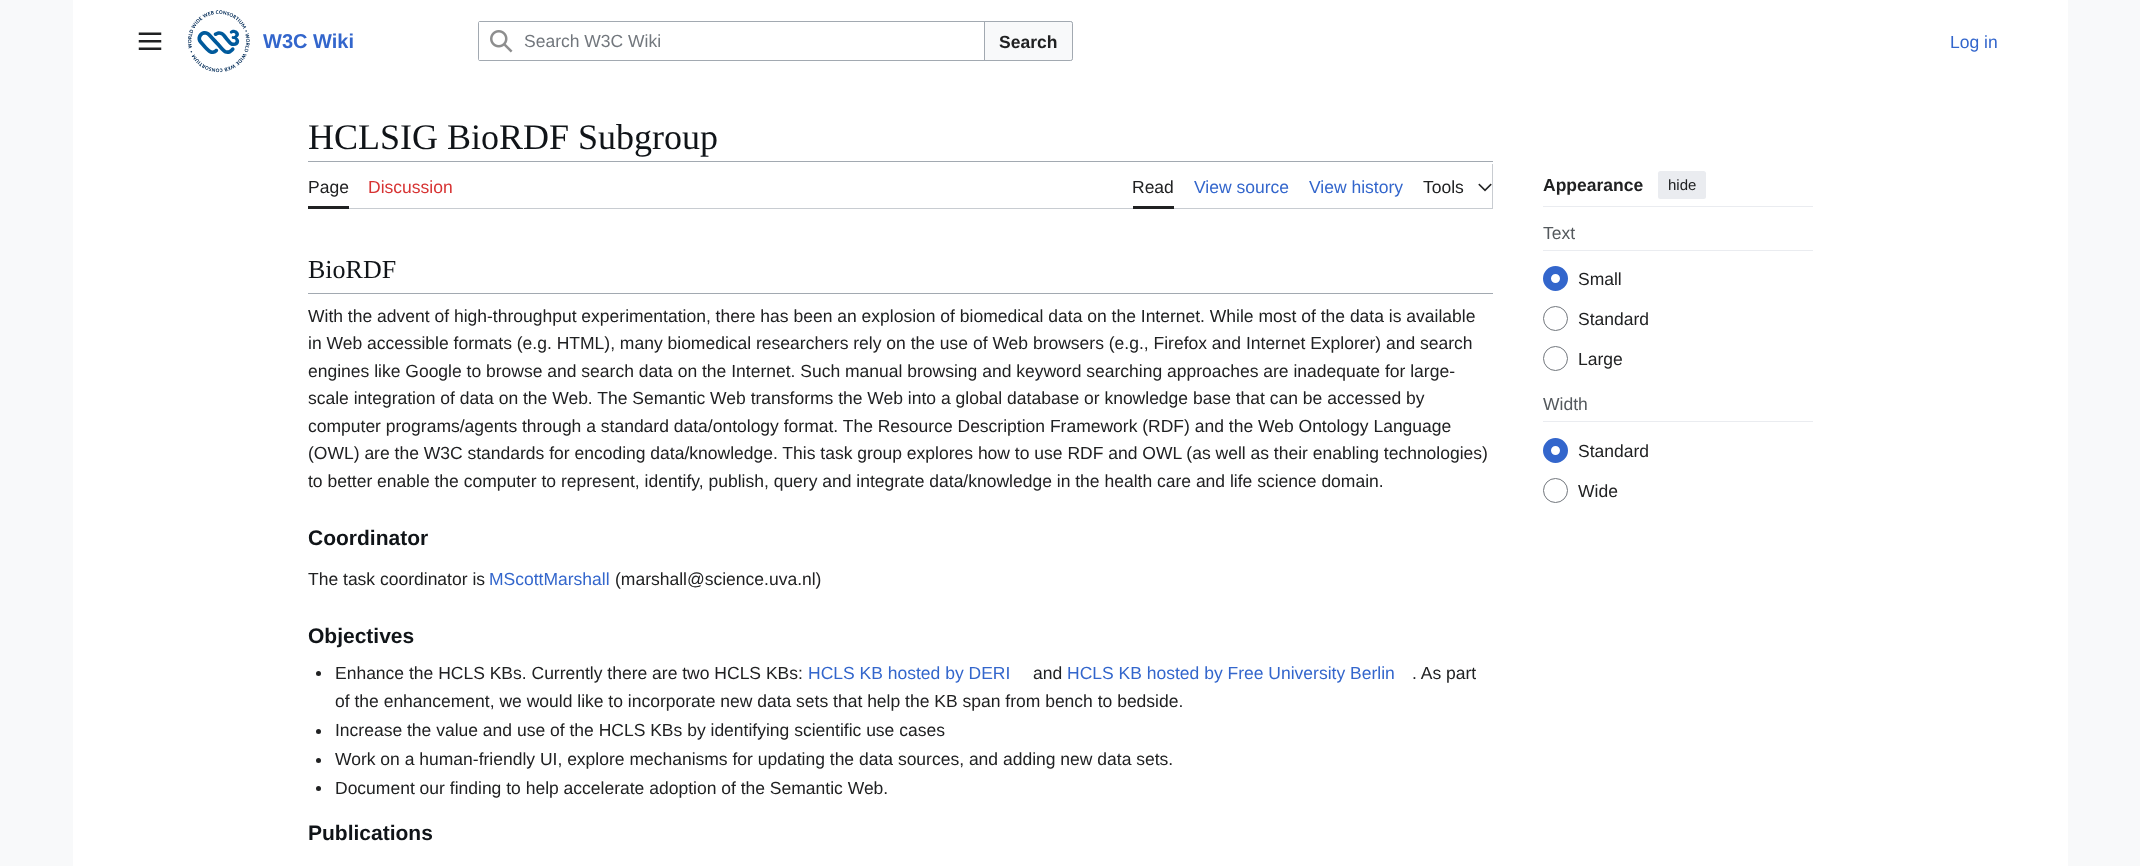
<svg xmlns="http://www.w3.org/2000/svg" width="2140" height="866">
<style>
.a{font:bold 20px Liberation Sans;fill:#36c}
.b{font:17.5px Liberation Sans;fill:#72777d}
.c{font:bold 17.5px Liberation Sans;fill:#202122}
.d{font:17.5px Liberation Sans;fill:#36c}
.e{font:36px Liberation Serif;fill:#101418}
.f{font:17.5px Liberation Sans;fill:#202122}
.g{font:17.5px Liberation Sans;fill:#d73333}
.h{font:15px Liberation Sans;fill:#202122}
.i{font:17.5px Liberation Sans;fill:#54595d}
.j{font:26px Liberation Serif;fill:#101418}
.k{font:bold 21px Liberation Sans;fill:#101418}
</style>
<rect width="100%" height="100%" fill="#f8f9fa"/>
<path fill="#fff" d="M73 0h1995v866H73z"/>
<image href="1.png" x="138" y="32" width="24" height="18"/>
<image href="2.png" x="188" y="10" width="62" height="63"/>
<rect fill="none" stroke="#a2a9b1" x="478.5" y="21.5" width="594" height="39" rx="2"/>
<path fill="#f8f9fa" stroke="#a2a9b1" d="M984.5 21.5h86c1 0 2 1 2 2v35c0 1-1 2-2 2h-86z"/>
<path fill="#fff" d="M480.5 21h504.5v40h-504.5c-1.5 0-2.5-1-2.5-2.5v-35c0-1.5 1-2.5 2.5-2.5z"/>
<path fill="#a2a9b1" fill-rule="evenodd" d="M480 21c-1 0-2 1-2 3v34c0 2 1 3 2 3h505v-40zm-1 1v38h505v-38z"/>
<image href="3.png" x="490" y="30" width="23" height="23"/>
<path fill="#a2a9b1" d="M308 161h1185v1H308z"/>
<path fill="#c8ccd1" d="M308 208v1h1185v-45h-1v44z"/>
<path fill="#202122" d="M308 206h41v3H308z"/>
<path fill="#202122" d="M1133 206h41v3H1133z"/>
<image href="4.png" x="1478" y="183" width="14" height="9"/>
<path fill="#eaecf0" d="M1543 206h270v1H1543z"/>
<rect fill="#eaecf0" x="1658" y="171" width="48" height="28" rx="2.5"/>
<path fill="#eaecf0" d="M1543 250h270v1H1543z"/>
<circle fill="none" stroke="#36c" stroke-width="8" cx="1555.5" cy="278.5" r="8.5"/>
<circle fill="none" stroke="#72777d" cx="1555.5" cy="318.5" r="12"/>
<circle fill="none" stroke="#72777d" cx="1555.5" cy="358.5" r="12"/>
<path fill="#eaecf0" d="M1543 421h270v1H1543z"/>
<circle fill="none" stroke="#36c" stroke-width="8" cx="1555.5" cy="450.5" r="8.5"/>
<circle fill="none" stroke="#72777d" cx="1555.5" cy="490.5" r="12"/>
<path fill="#a2a9b1" d="M308 293h1185v1H308z"/>
<circle fill="#202122" cx="318.5" cy="673.5" r="2.5"/>
<circle fill="#202122" cx="318.5" cy="731.5" r="2.5"/>
<circle fill="#202122" cx="318.5" cy="760.5" r="2.5"/>
<circle fill="#202122" cx="318.5" cy="788.5" r="2.5"/>
<text class="a" x="263" y="48">W3C Wiki</text>
<text class="b" x="524" y="47">Search W3C Wiki</text>
<text class="c" x="999" y="48">Search</text>
<text class="d" x="1950" y="48">Log in</text>
<text class="e" x="308" y="149">HCLSIG BioRDF Subgroup</text>
<text class="f" x="308" y="193">Page</text>
<text class="g" x="368" y="193">Discussion</text>
<text class="f" x="1132" y="193">Read</text>
<text class="d" x="1194" y="193">View source</text>
<text class="d" x="1309" y="193">View history</text>
<text class="f" x="1423" y="193">Tools</text>
<text class="c" x="1543" y="191">Appearance</text>
<text class="h" x="1668" y="190">hide</text>
<text class="i" x="1543" y="239">Text</text>
<text class="f" x="1578" y="285">Small</text>
<text class="f" x="1578" y="325">Standard</text>
<text class="f" x="1578" y="365">Large</text>
<text class="i" x="1543" y="410">Width</text>
<text class="f" x="1578" y="457">Standard</text>
<text class="f" x="1578" y="497">Wide</text>
<text class="j" x="308" y="278">BioRDF</text>
<text class="f" x="308" y="322">With the advent of high-throughput experimentation, there has been an explosion of biomedical data on the Internet. While most of the data is available</text>
<text class="f" x="308" y="349">in Web accessible formats (e.g. HTML), many biomedical researchers rely on the use of Web browsers (e.g., Firefox and Internet Explorer) and search</text>
<text class="f" x="308" y="377">engines like Google to browse and search data on the Internet. Such manual browsing and keyword searching approaches are inadequate for large-</text>
<text class="f" x="308" y="404">scale integration of data on the Web. The Semantic Web transforms the Web into a global database or knowledge base that can be accessed by</text>
<text class="f" x="308" y="432">computer programs/agents through a standard data/ontology format. The Resource Description Framework (RDF) and the Web Ontology Language</text>
<text class="f" x="308" y="459">(OWL) are the W3C standards for encoding data/knowledge. This task group explores how to use RDF and OWL (as well as their enabling technologies)</text>
<text class="f" x="308" y="487">to better enable the computer to represent, identify, publish, query and integrate data/knowledge in the health care and life science domain.</text>
<text class="k" x="308" y="545">Coordinator</text>
<text class="f" x="308" y="585">The task coordinator is</text>
<text class="d" x="489" y="585">MScottMarshall</text>
<text class="f" x="615" y="585">(marshall@science.uva.nl)</text>
<text class="k" x="308" y="643">Objectives</text>
<text class="f" x="335" y="679">Enhance the HCLS KBs. Currently there are two HCLS KBs:</text>
<text class="d" x="808" y="679">HCLS KB hosted by DERI</text>
<text class="f" x="1033" y="679">and</text>
<text class="d" x="1067" y="679">HCLS KB hosted by Free University Berlin</text>
<text class="f" x="1412" y="679">. As part</text>
<text class="f" x="335" y="707">of the enhancement, we would like to incorporate new data sets that help the KB span from bench to bedside.</text>
<text class="f" x="335" y="736">Increase the value and use of the HCLS KBs by identifying scientific use cases</text>
<text class="f" x="335" y="765">Work on a human-friendly UI, explore mechanisms for updating the data sources, and adding new data sets.</text>
<text class="f" x="335" y="794">Document our finding to help accelerate adoption of the Semantic Web.</text>
<text class="k" x="308" y="840">Publications</text>
</svg>
